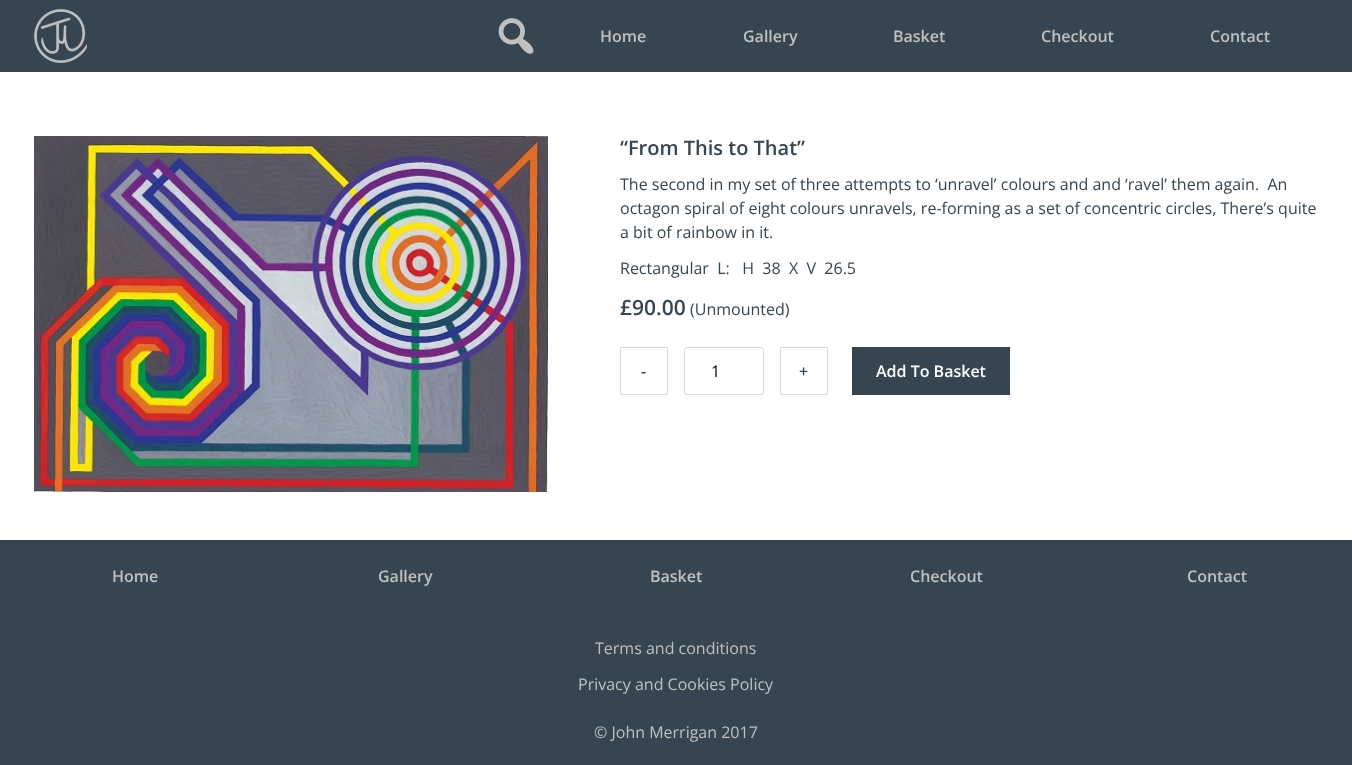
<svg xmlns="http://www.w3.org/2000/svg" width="1352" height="765">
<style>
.a{font:600 16px Open Sans;fill:#c0c0c0}
.b{font:600 20px Open Sans;fill:#36454f}
.c{font:16px Open Sans;fill:#36454f}
.d{font:600 21px Open Sans;fill:#36454f}
.e{font:600 16px Open Sans;fill:#36454f}
.f{font:16px Open Sans;fill:#000}
.g{font:600 16px Open Sans;fill:#fff}
.h{font:16px Open Sans;fill:#c0c0c0}
</style>
<rect width="100%" height="100%" fill="#fff"/>
<path fill="#36454f" d="M0 0h1352v72H0z"/>
<image href="1.png" x="33" y="9" width="54" height="54"/>
<image href="2.png" x="498" y="18" width="36" height="36"/>
<image href="3.png" x="34" y="136" width="514" height="356"/>
<path fill="none" stroke="#d5dde2" d="M620.5 347.5h47v47H620.5z"/>
<rect fill="none" stroke="#d5dde2" x="684.5" y="347.5" width="79" height="47" rx="2.5"/>
<path fill="none" stroke="#d5dde2" d="M780.5 347.5h47v47H780.5z"/>
<path fill="#36454f" d="M852 347h158v48H852z"/>
<path fill="#36454f" d="M0 540h1352v225H0z"/>
<text class="a" x="600" y="42">Home</text>
<text class="a" x="743" y="42">Gallery</text>
<text class="a" x="893" y="42">Basket</text>
<text class="a" x="1041" y="42">Checkout</text>
<text class="a" x="1210" y="42">Contact</text>
<text class="b" x="620" y="155">“From This to That”</text>
<text class="c" xml:space="preserve" x="620" y="190">The second in my set of three attempts to ‘unravel’ colours and and ‘ravel’ them again.  An</text>
<text class="c" x="620" y="214">octagon spiral of eight colours unravels, re-forming as a set of concentric circles, There’s quite</text>
<text class="c" x="620" y="238">a bit of rainbow in it.</text>
<text class="c" xml:space="preserve" x="620" y="274">Rectangular  L:   H  38  X  V  26.5</text>
<text class="d" x="620" y="315">£90.00</text>
<text class="c" x="690" y="315">(Unmounted)</text>
<text class="e" x="641" y="377">-</text>
<text class="f" x="711" y="377">1</text>
<text class="e" x="799" y="377">+</text>
<text class="g" x="876" y="377">Add To Basket</text>
<text class="a" x="112" y="582">Home</text>
<text class="a" x="378" y="582">Gallery</text>
<text class="a" x="650" y="582">Basket</text>
<text class="a" x="910" y="582">Checkout</text>
<text class="a" x="1187" y="582">Contact</text>
<text class="h" x="595" y="654">Terms and conditions</text>
<text class="h" x="578" y="690">Privacy and Cookies Policy</text>
<text class="h" x="594" y="738">© John Merrigan 2017</text>
</svg>
